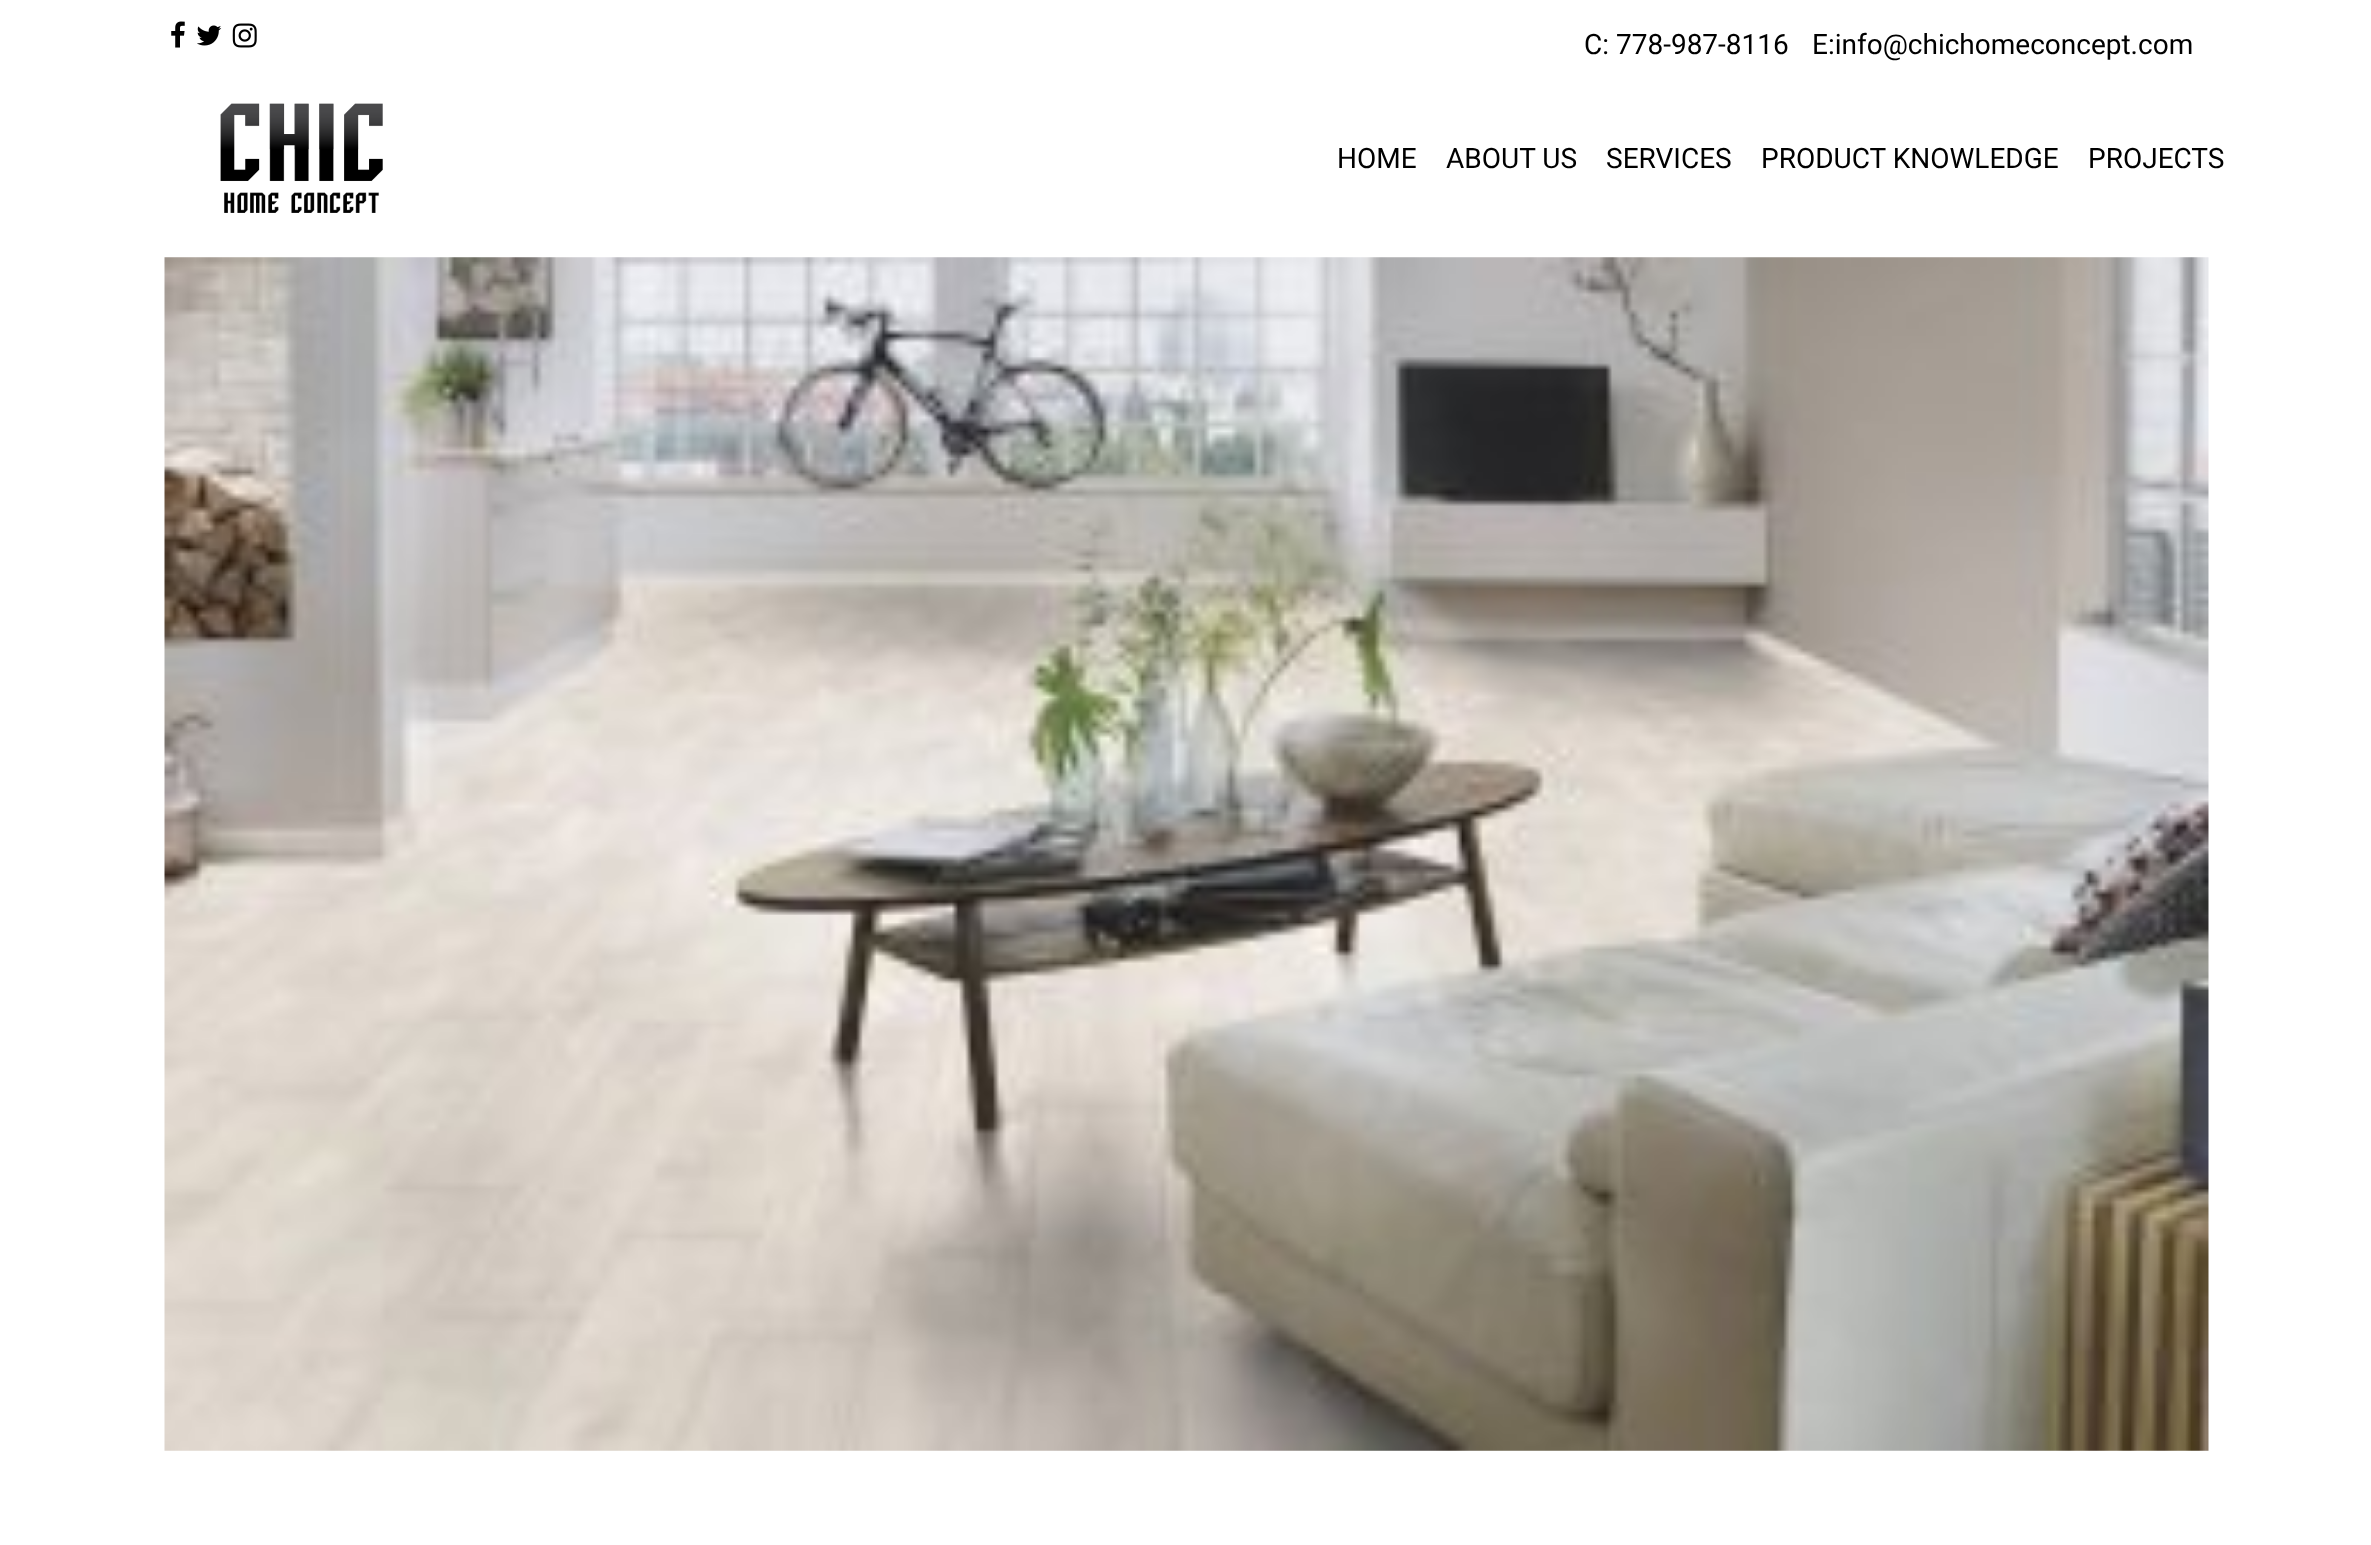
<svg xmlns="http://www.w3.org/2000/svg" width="2371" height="1545">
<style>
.a{font:28px Roboto;fill:#000}
</style>
<rect width="100%" height="100%" fill="#fff"/>
<image href="1.png" x="171" y="21" width="14" height="27"/>
<image href="2.png" x="197" y="25" width="25" height="21"/>
<image href="3.png" x="232" y="23" width="25" height="25"/>
<image href="4.png" x="220" y="103" width="163" height="110"/>
<image href="5.png" x="164" y="257" width="2045" height="1194"/>
<text class="a" x="1584" y="54">C: 778-987-8116</text>
<text class="a" x="1812" y="54">E:info@chichomeconcept.com</text>
<text class="a" x="1337" y="168">HOME</text>
<text class="a" x="1446" y="168">ABOUT US</text>
<text class="a" x="1606" y="168">SERVICES</text>
<text class="a" x="1761" y="168">PRODUCT KNOWLEDGE</text>
<text class="a" x="2088" y="168">PROJECTS</text>
</svg>
